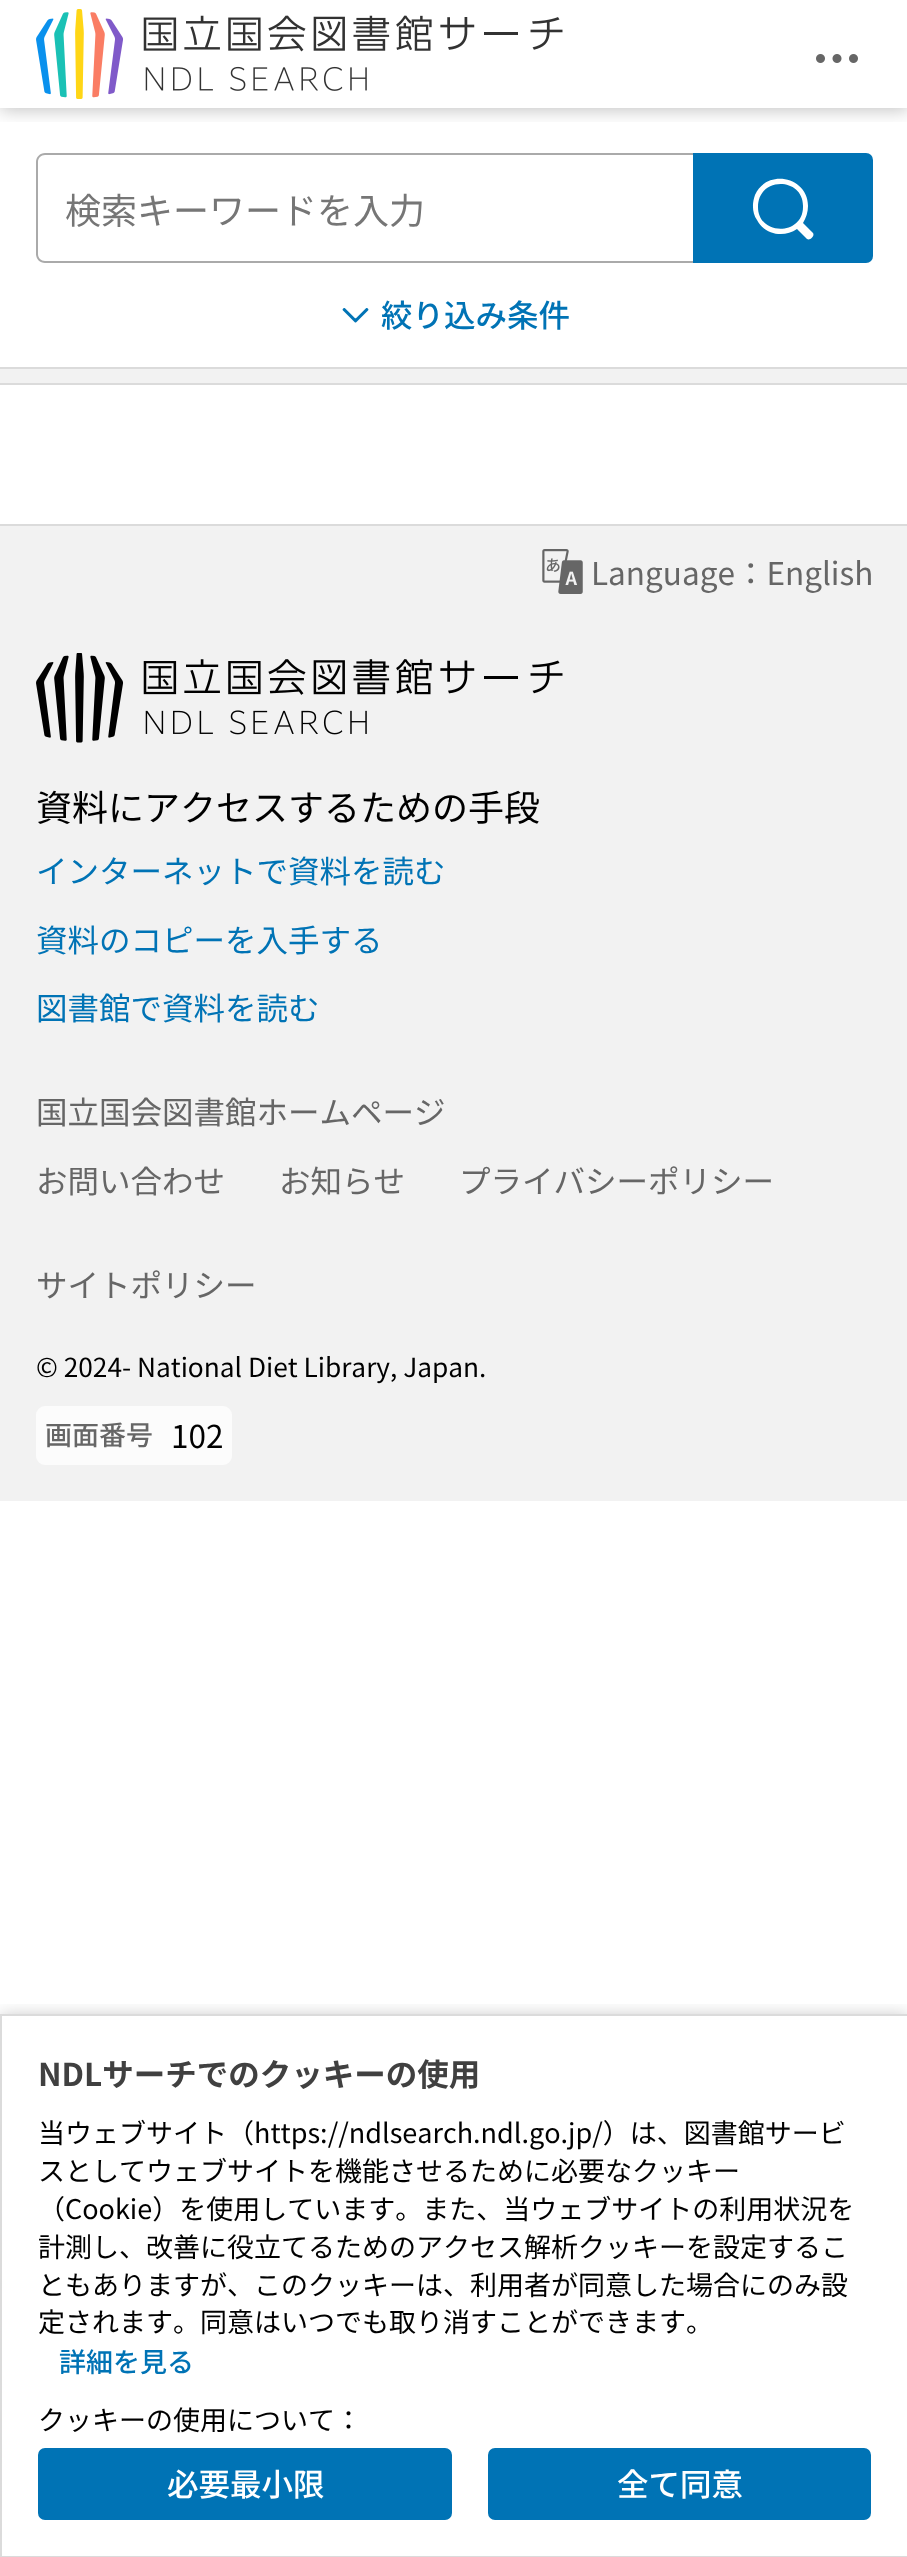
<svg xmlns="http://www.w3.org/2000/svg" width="907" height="2557">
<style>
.a{font:36px Noto Sans JP;fill:#767676}
.b{font:500 31.5px Noto Sans JP;fill:#0073b5}
.c{font:31.5px Noto Sans JP;fill:#666}
.d{font:36px Noto Sans JP;fill:#000}
.e{font:31.5px Noto Sans JP;fill:#0073b5}
.f{font:26.25px Noto Sans JP;fill:#000}
.g{font:500 27px Noto Sans JP;fill:#666}
.h{font:31.5px Noto Sans JP;fill:#000}
.i{font:bold 31.5px Noto Sans JP;fill:#404040}
.j{font:27px Noto Sans JP;fill:#000}
.k{font:500 27px Noto Sans JP;fill:#0073b5}
.l{font:500 31.5px Noto Sans JP;fill:#fff}
</style>
<defs>
<clipPath id="clip1"><path d="M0 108h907v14H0z"/></clipPath>
<clipPath id="clip2"><path d="M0 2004h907v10H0z"/></clipPath>
</defs>
<rect width="100%" height="100%" fill="#fff"/>
<g clip-path="url(#clip1)">
<path fill="#0000003d" filter="blur(9px)" d="M0 2h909v108H0z"/>
</g>
<image href="1.png" x="36" y="9" width="527" height="90"/>
<image href="2.png" x="816" y="54" width="42" height="9"/>
<path fill="#aaa" fill-rule="evenodd" d="M45 153h648v110h-648c-5 0-9-4-9-9v-92c0-5 4-9 9-9zm0 2h648v106h-648c-4 0-7-3-7-7v-92c0-4 3-7 7-7z"/>
<path fill="#0073b5" stroke="#0073b5" stroke-width="2" d="M694 154h172c3.5 0 6 2.5 6 6v96c0 3.5-2.5 6-6 6h-172z"/>
<path fill="#fff" fill-rule="evenodd" d="M813 233l-10-10c3-5 5-11 5-17c0-29-41-38-53-11c-3 8-3 18 2 25c8 15 27 18 40 9l10 10c3 2 8-3 6-6zm-55-26c0-31 46-30 45 0c0 29-45 29-45 0z"/>
<image href="3.png" x="342" y="308" width="27" height="15"/>
<path fill="#f2f2f2" d="M0 369h907v14H0z"/>
<path fill="#dbdbdb" d="M0 367h907v2H0z"/>
<path fill="#dbdbdb" d="M0 383h907v2H0z"/>
<path fill="#f2f2f2" d="M0 526h907v975H0z"/>
<path fill="#dbdbdb" d="M0 524h907v2H0z"/>
<image href="4.png" x="542" y="549" width="41" height="45"/>
<image href="5.png" x="36" y="653" width="527" height="90"/>
<rect fill="#fcfcfc" x="36" y="1406" width="196" height="59" rx="9"/>
<g clip-path="url(#clip2)">
<path fill="#0000003d" filter="blur(9px)" d="M0 2016h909v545H0z"/>
</g>
<path fill="none" stroke="#dbdbdb" stroke-width="2" d="M1 2015h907v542H1z"/>
<rect fill="#0073b5" stroke="#0073b5" stroke-width="2" x="39" y="2449" width="412" height="70" rx="6"/>
<rect fill="#0073b5" stroke="#0073b5" stroke-width="2" x="489" y="2449" width="381" height="70" rx="6"/>
<text class="a" x="65" y="224">検索キーワードを入力</text>
<text class="b" x="381" y="327">絞り込み条件</text>
<text class="c" x="591" y="585">Language：English</text>
<text class="d" x="36" y="821">資料にアクセスするための手段</text>
<text class="e" x="36" y="883">インターネットで資料を読む</text>
<text class="e" x="36" y="952">資料のコピーを入手する</text>
<text class="e" x="36" y="1020">図書館で資料を読む</text>
<text class="c" x="36" y="1124">国立国会図書館ホームページ</text>
<text class="c" x="36" y="1193">お問い合わせ</text>
<text class="c" x="279" y="1193">お知らせ</text>
<text class="c" x="459" y="1193">プライバシーポリシー</text>
<text class="c" x="36" y="1297">サイトポリシー</text>
<text class="f" x="36" y="1377">© 2024- National Diet Library, Japan.</text>
<text class="g" x="45" y="1445">画面番号</text>
<text class="h" x="171" y="1448">102</text>
<text class="i" x="38" y="2086">NDLサーチでのクッキーの使用</text>
<text class="j" x="38" y="2143">当ウェブサイト（https://ndlsearch.ndl.go.jp/）は、図書館サービ</text>
<text class="j" x="38" y="2181">スとしてウェブサイトを機能させるために必要なクッキー</text>
<text class="j" x="38" y="2219">（Cookie）を使用しています。また、当ウェブサイトの利用状況を</text>
<text class="j" x="38" y="2257">計測し、改善に役立てるためのアクセス解析クッキーを設定するこ</text>
<text class="j" x="38" y="2295">ともありますが、このクッキーは、利用者が同意した場合にのみ設</text>
<text class="j" x="38" y="2332">定されます。同意はいつでも取り消すことができます。</text>
<text class="k" x="59" y="2372">詳細を見る</text>
<text class="j" x="38" y="2430">クッキーの使用について：</text>
<text class="l" x="167" y="2496">必要最小限</text>
<text class="l" x="617" y="2496">全て同意</text>
</svg>
